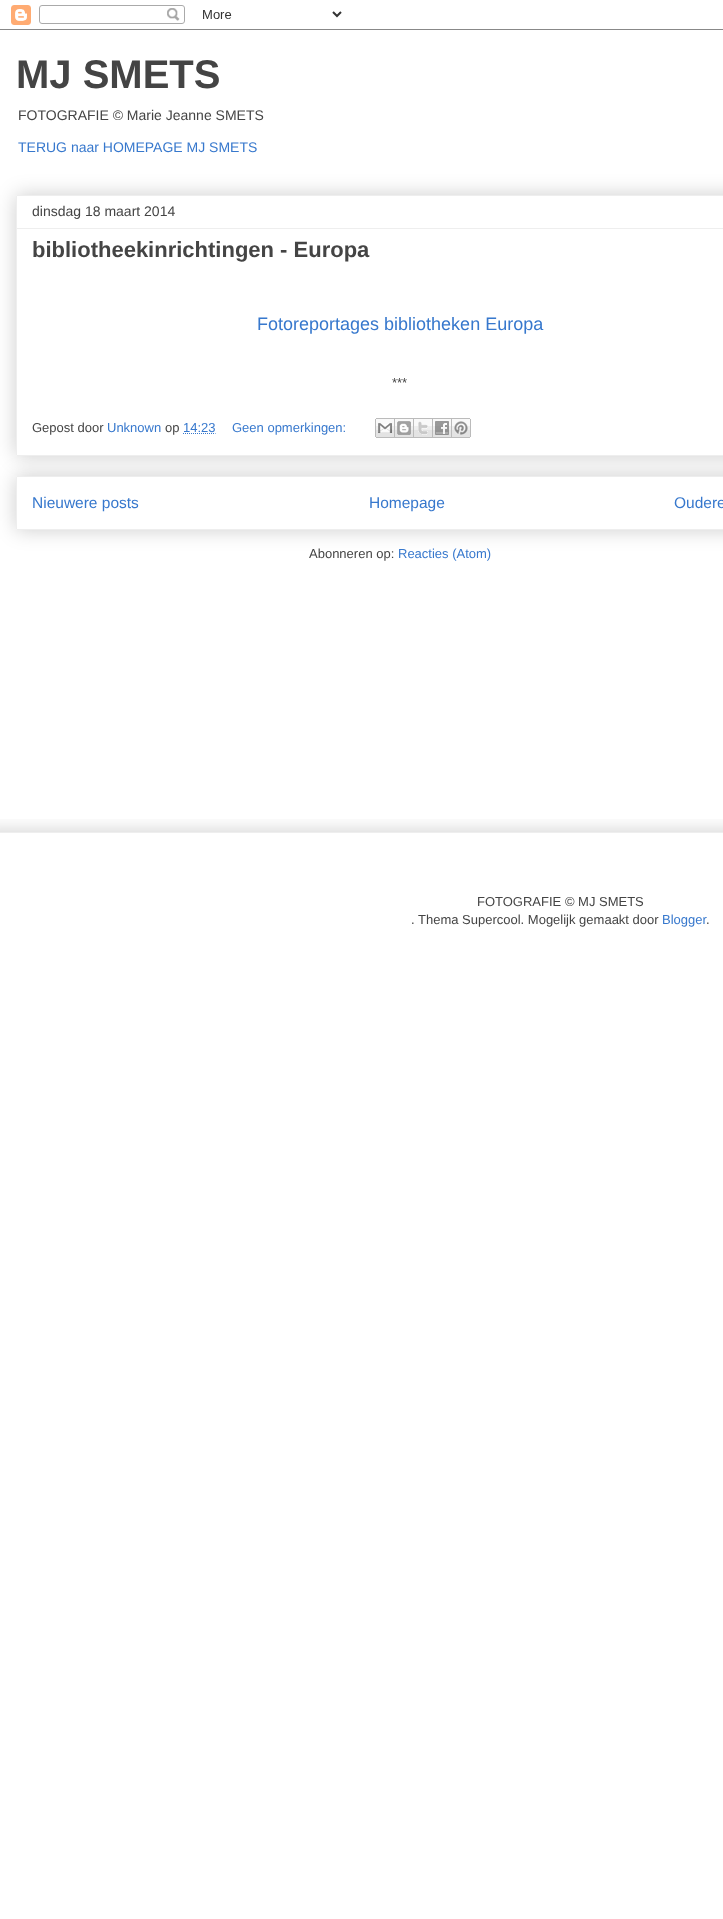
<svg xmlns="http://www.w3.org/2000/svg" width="723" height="1919">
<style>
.a{font:bold 40px Liberation Sans;fill:#444}
.b{font:14px Liberation Sans;fill:#444}
.c{font:14px Liberation Sans;fill:#3778cd}
.d{font:bold 22px Liberation Sans;fill:#444}
.e{font:18px Liberation Sans;fill:#3778cd}
.f{font:13px Liberation Sans;fill:#444}
.g{font:13px Liberation Sans;fill:#3778cd}
.h{font:15.5px Liberation Sans;fill:#3778cd}
</style>
<defs>
<clipPath id="clip1"><path d="M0 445h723v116h-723zm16 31h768v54h-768z" clip-rule="evenodd"/></clipPath>
<clipPath id="clip2"><path d="M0 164h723v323h-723zm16 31h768v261h-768z" clip-rule="evenodd"/></clipPath>
<clipPath id="clip3"><path d="M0 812h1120v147H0z"/></clipPath>
<clipPath id="clip4"><path d="M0 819h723v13H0z"/></clipPath>
</defs>
<rect width="100%" height="100%" fill="#fff"/>
<image href="1.png" x="0" y="5" width="723" height="25"/>
<g clip-path="url(#clip1)">
<path fill="#00000033" filter="blur(10px)" d="M16 476h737v54H16z"/>
</g>
<path fill="none" stroke="#eee" d="M16.5 476.5h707v53H16.5z"/>
<g clip-path="url(#clip2)">
<path fill="#00000033" filter="blur(10px)" d="M16 195h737v261H16z"/>
</g>
<path fill="none" stroke="#eee" d="M16.5 195.5h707v260H16.5z"/>
<path fill="#eee" d="M17 228h706v1H17z"/>
<path fill="none" stroke="#3778cd" stroke-dasharray="1 1" d="M183 433.5h32.5"/>
<image href="2.png" x="375" y="418" width="20" height="20"/>
<image href="3.png" x="395" y="418" width="19" height="20"/>
<image href="4.png" x="414" y="418" width="19" height="20"/>
<image href="5.png" x="433" y="418" width="19" height="20"/>
<image href="6.png" x="452" y="418" width="19" height="20"/>
<g clip-path="url(#clip3)">
<g clip-path="url(#clip4)">
<path fill="#00000033" filter="blur(10px)" d="M-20 832h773v127H-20z"/>
</g>
</g>
<path fill="#eee" d="M0 832h723v1H0z"/>
<text class="a" x="16" y="88">MJ SMETS</text>
<text class="b" x="18" y="120">FOTOGRAFIE © Marie Jeanne SMETS</text>
<text class="c" x="18" y="152">TERUG naar HOMEPAGE MJ SMETS</text>
<text class="b" x="32" y="216">dinsdag 18 maart 2014</text>
<text class="d" x="32" y="257">bibliotheekinrichtingen - Europa</text>
<text class="e" x="257" y="330">Fotoreportages bibliotheken Europa</text>
<text class="f" x="392" y="387">***</text>
<text class="f" x="32" y="432">Gepost door</text>
<text class="g" x="107" y="432">Unknown</text>
<text class="f" x="165" y="432">op</text>
<text class="g" x="183" y="432">14:23</text>
<text class="g" x="232" y="432">Geen opmerkingen:</text>
<text class="h" x="32" y="508">Nieuwere posts</text>
<text class="h" x="369" y="508">Homepage</text>
<text class="h" x="674" y="508">Oudere</text>
<text class="f" x="309" y="558">Abonneren op:</text>
<text class="g" x="398" y="558">Reacties (Atom)</text>
<text class="f" x="477" y="906">FOTOGRAFIE © MJ SMETS</text>
<text class="f" x="411" y="924">. Thema Supercool. Mogelijk gemaakt door</text>
<text class="g" x="662" y="924">Blogger</text>
<text class="f" x="706" y="924">.</text>
</svg>
